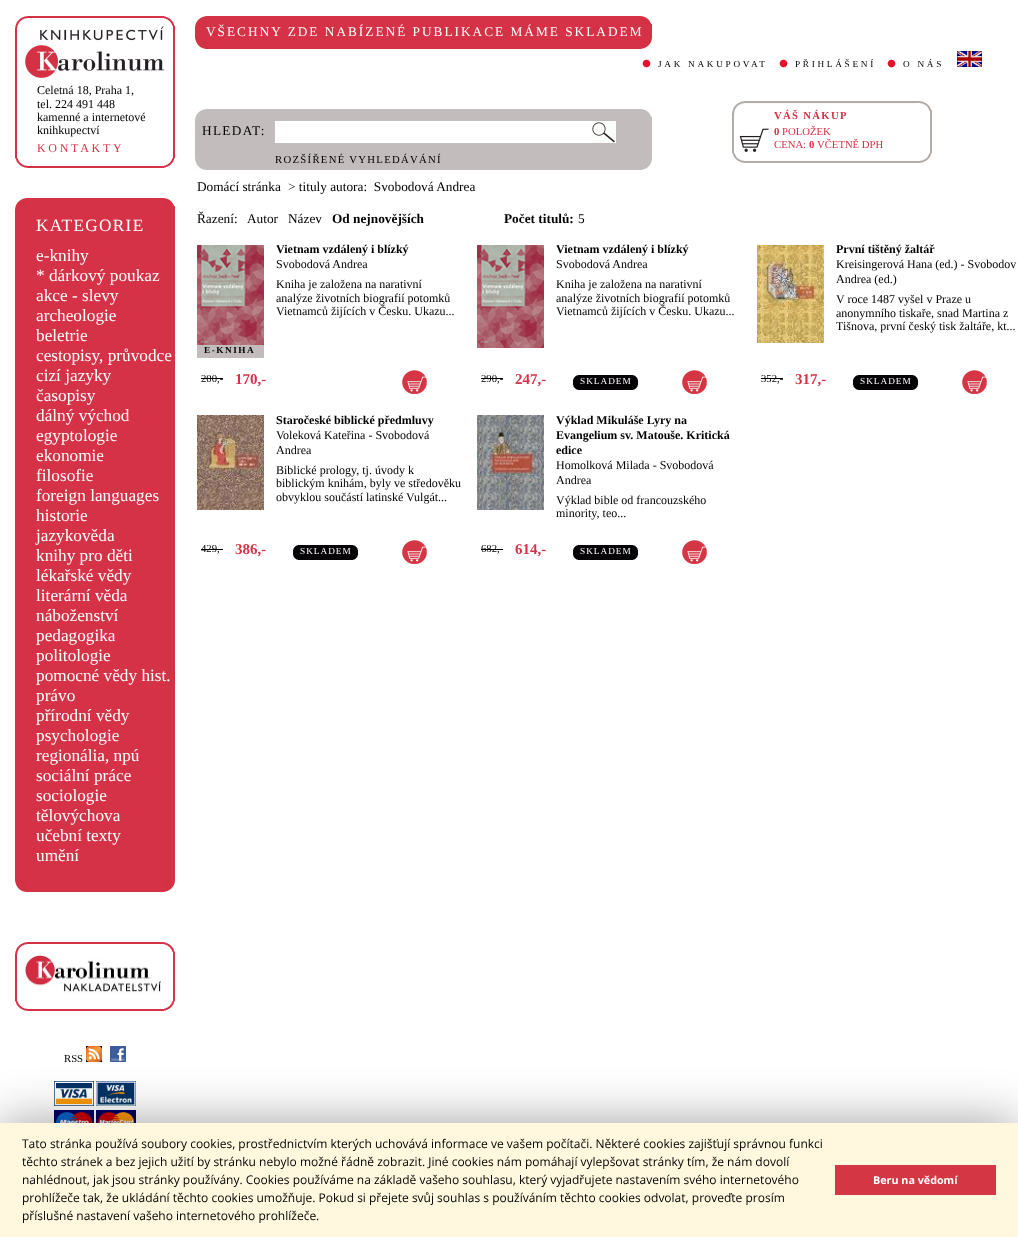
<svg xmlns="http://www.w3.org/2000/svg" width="1018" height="1237">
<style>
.a{font:12px Liberation Serif;fill:#000}
.b{font:12px Liberation Serif;letter-spacing:2.7px;fill:#d63247}
.c{font:17.25px Liberation Serif;letter-spacing:1.3px;fill:#fff}
.d{font:17.25px Liberation Serif;fill:#fff}
.e{font:10.7px Liberation Serif;fill:#000}
.f{font:13.3px Liberation Serif;letter-spacing:2px;fill:#fff}
.g{font:9.25px Liberation Serif;letter-spacing:2.7px;fill:#000}
.h{font:13.3px Liberation Serif;letter-spacing:1.3px;fill:#000}
.i{font:10.7px Liberation Serif;letter-spacing:1.3px;fill:#000}
.j{font:bold 10.7px Liberation Serif;letter-spacing:1.3px;fill:#d63247}
.k{font:bold 10.7px Liberation Serif;fill:#d63247}
.l{font:10.7px Liberation Serif;fill:#d63247}
.m{font:13.3px Liberation Serif;fill:#000}
.n{font:bold 13.3px Liberation Serif;fill:#000}
.o{font:bold 12px Liberation Serif;fill:#000}
.p{font:bold 9.25px Liberation Serif;letter-spacing:1.5px;fill:#000}
.q{font:bold 15px Liberation Serif;fill:#d63247}
.r{font:9.25px Liberation Serif;letter-spacing:1px;fill:#fff}
.s{font:12px Open Sans;fill:#000}
.t{font:bold 10.75px Open Sans;fill:#fff}
</style>
<rect width="100%" height="100%" fill="#fff"/>
<image href="1.png" x="15" y="16" width="158" height="142"/>
<image href="2.png" x="164" y="16" width="11" height="10"/>
<path fill="#d63247" d="M173 26h2v132H173z"/>
<image href="3.png" x="25" y="26" width="140" height="52"/>
<image href="4.png" x="15" y="158" width="149" height="10"/>
<image href="5.png" x="164" y="158" width="11" height="10"/>
<path fill="#d63247" d="M15 198h160v694H15z"/>
<image href="6.png" x="15" y="880" width="12" height="12"/>
<image href="7.png" x="163" y="880" width="12" height="12"/>
<image href="8.png" x="15" y="198" width="12" height="12"/>
<image href="9.png" x="163" y="198" width="12" height="8"/>
<image href="10.png" x="15" y="942" width="158" height="59"/>
<image href="2.png" x="164" y="942" width="11" height="10"/>
<path fill="#d63247" d="M173 952h2v49H173z"/>
<image href="11.png" x="25" y="955" width="136" height="39"/>
<image href="4.png" x="15" y="1001" width="149" height="10"/>
<image href="5.png" x="164" y="1001" width="11" height="10"/>
<image href="12.png" x="86" y="1046" width="16" height="16"/>
<image href="13.png" x="110" y="1046" width="16" height="16"/>
<image href="14.png" x="54" y="1081" width="40" height="25"/>
<image href="15.png" x="96" y="1081" width="40" height="25"/>
<image href="16.png" x="54" y="1110" width="40" height="13"/>
<image href="17.png" x="96" y="1110" width="40" height="13"/>
<path fill="#d63247" d="M195 16h457v33H195z"/>
<image href="6.png" x="195" y="37" width="12" height="12"/>
<image href="7.png" x="640" y="37" width="12" height="12"/>
<image href="8.png" x="195" y="16" width="12" height="12"/>
<image href="9.png" x="640" y="16" width="12" height="8"/>
<image href="18.png" x="642" y="59" width="9" height="9"/>
<image href="18.png" x="779" y="59" width="9" height="9"/>
<image href="18.png" x="887" y="59" width="9" height="9"/>
<image href="19.png" x="957" y="51" width="25" height="16"/>
<path fill="#c2bdbc" d="M195 109h457v61H195z"/>
<image href="20.png" x="195" y="158" width="11" height="12"/>
<image href="21.png" x="640" y="159" width="12" height="11"/>
<image href="22.png" x="195" y="109" width="12" height="11"/>
<image href="23.png" x="641" y="109" width="11" height="8"/>
<path fill="#fff" d="M275 121h316v22H275z"/>
<image href="24.png" x="591" y="121" width="25" height="22"/>
<image href="25.png" x="732" y="101" width="198" height="52"/>
<image href="26.png" x="917" y="101" width="15" height="10"/>
<path fill="#b2ada8" d="M930 110h2v44H930z"/>
<image href="27.png" x="739" y="128" width="30" height="24"/>
<image href="28.png" x="732" y="153" width="188" height="10"/>
<image href="29.png" x="920" y="153" width="12" height="10"/>
<image href="30.png" x="197" y="245" width="67" height="100"/>
<path fill="#c2bdbc" d="M197 345h67v13H197z"/>
<path fill="#000" d="M201 378h22v1H201z"/>
<image href="31.png" x="402" y="370" width="25" height="24"/>
<image href="32.png" x="477" y="245" width="67" height="103"/>
<path fill="#000" d="M481 378h22v1H481z"/>
<image href="33.png" x="573" y="375" width="60" height="15"/>
<image href="34.png" x="633" y="375" width="5" height="15"/>
<image href="31.png" x="682" y="370" width="25" height="24"/>
<image href="35.png" x="757" y="245" width="67" height="98"/>
<path fill="#000" d="M761 378h22v1H761z"/>
<image href="33.png" x="853" y="375" width="60" height="15"/>
<image href="34.png" x="913" y="375" width="5" height="15"/>
<image href="31.png" x="962" y="370" width="25" height="24"/>
<image href="36.png" x="197" y="415" width="67" height="95"/>
<path fill="#000" d="M201 549h22v1H201z"/>
<image href="33.png" x="293" y="545" width="60" height="15"/>
<image href="34.png" x="353" y="545" width="5" height="15"/>
<image href="31.png" x="402" y="540" width="25" height="24"/>
<image href="37.png" x="477" y="415" width="67" height="95"/>
<path fill="#000" d="M481 549h22v1H481z"/>
<image href="33.png" x="573" y="545" width="60" height="15"/>
<image href="34.png" x="633" y="545" width="5" height="15"/>
<image href="31.png" x="682" y="540" width="25" height="24"/>
<path fill="#00000061" filter="blur(25px)" d="M0 1123h1018v114H0z"/>
<path fill="#fff8de" d="M0 1123h1018v114H0z"/>
<path fill="#d43644" d="M835 1165h161v30H835z"/>
<text class="a" x="37" y="94">Celetná 18, Praha 1,</text>
<text class="a" x="37" y="108">tel. 224 491 448</text>
<text class="a" x="37" y="121">kamenné a internetové</text>
<text class="a" x="37" y="134">knihkupectví</text>
<text class="b" x="37" y="152">KONTAKTY</text>
<text class="c" x="36" y="231">KATEGORIE</text>
<text class="d" x="36" y="261">e-knihy</text>
<text class="d" x="36" y="281">* dárkový poukaz</text>
<text class="d" x="36" y="301">akce - slevy</text>
<text class="d" x="36" y="321">archeologie</text>
<text class="d" x="36" y="341">beletrie</text>
<text class="d" x="36" y="361">cestopisy, průvodce</text>
<text class="d" x="36" y="381">cizí jazyky</text>
<text class="d" x="36" y="401">časopisy</text>
<text class="d" x="36" y="421">dálný východ</text>
<text class="d" x="36" y="441">egyptologie</text>
<text class="d" x="36" y="461">ekonomie</text>
<text class="d" x="36" y="481">filosofie</text>
<text class="d" x="36" y="501">foreign languages</text>
<text class="d" x="36" y="521">historie</text>
<text class="d" x="36" y="541">jazykověda</text>
<text class="d" x="36" y="561">knihy pro děti</text>
<text class="d" x="36" y="581">lékařské vědy</text>
<text class="d" x="36" y="601">literární věda</text>
<text class="d" x="36" y="621">náboženství</text>
<text class="d" x="36" y="641">pedagogika</text>
<text class="d" x="36" y="661">politologie</text>
<text class="d" x="36" y="681">pomocné vědy hist.</text>
<text class="d" x="36" y="701">právo</text>
<text class="d" x="36" y="721">přírodní vědy</text>
<text class="d" x="36" y="741">psychologie</text>
<text class="d" x="36" y="761">regionália, npú</text>
<text class="d" x="36" y="781">sociální práce</text>
<text class="d" x="36" y="801">sociologie</text>
<text class="d" x="36" y="821">tělovýchova</text>
<text class="d" x="36" y="841">učební texty</text>
<text class="d" x="36" y="861">umění</text>
<text class="e" x="64" y="1062">RSS</text>
<text class="f" x="206" y="36">VŠECHNY ZDE NABÍZENÉ PUBLIKACE MÁME SKLADEM</text>
<text class="g" x="658" y="67">JAK NAKUPOVAT</text>
<text class="g" x="795" y="67">PŘIHLÁŠENÍ</text>
<text class="g" x="903" y="67">O NÁS</text>
<text class="h" x="202" y="135">HLEDAT:</text>
<text class="i" x="275" y="163">ROZŠÍŘENÉ VYHLEDÁVÁNÍ</text>
<text class="j" x="774" y="119">VÁŠ NÁKUP</text>
<text class="k" x="774" y="135">0</text>
<text class="l" x="782" y="135">POLOŽEK</text>
<text class="l" x="774" y="148">CENA:</text>
<text class="k" x="809" y="148">0</text>
<text class="l" x="817" y="148">VČETNĚ DPH</text>
<text class="m" x="197" y="191">Domácí stránka</text>
<text class="m" xml:space="preserve" x="288" y="191">&gt; tituly autora:  Svobodová Andrea</text>
<text class="m" x="197" y="223">Řazení:</text>
<text class="m" x="247" y="223">Autor</text>
<text class="m" x="288" y="223">Název</text>
<text class="n" x="332" y="223">Od nejnovějších</text>
<text class="n" x="504" y="223">Počet titulů:</text>
<text class="m" x="578" y="223">5</text>
<text class="o" x="276" y="253">Vietnam vzdálený i blízký</text>
<text class="a" x="276" y="268">Svobodová Andrea</text>
<text class="a" x="276" y="288">Kniha je založena na narativní</text>
<text class="a" x="276" y="302">analýze životních biografií potomků</text>
<text class="a" x="276" y="315">Vietnamců žijících v Česku. Ukazu...</text>
<text class="p" x="204" y="353">E-KNIHA</text>
<text class="e" x="201" y="382">200,-</text>
<text class="q" x="235" y="384">170,-</text>
<text class="o" x="556" y="253">Vietnam vzdálený i blízký</text>
<text class="a" x="556" y="268">Svobodová Andrea</text>
<text class="a" x="556" y="288">Kniha je založena na narativní</text>
<text class="a" x="556" y="302">analýze životních biografií potomků</text>
<text class="a" x="556" y="315">Vietnamců žijících v Česku. Ukazu...</text>
<text class="e" x="481" y="382">290,-</text>
<text class="q" x="515" y="384">247,-</text>
<text class="r" x="580" y="384">SKLADEM</text>
<text class="o" x="836" y="253">První tištěný žaltář</text>
<text class="a" x="836" y="268">Kreisingerová Hana (ed.) - Svobodov</text>
<text class="a" x="836" y="283">Andrea (ed.)</text>
<text class="a" x="836" y="303">V roce 1487 vyšel v Praze u</text>
<text class="a" x="836" y="317">anonymního tiskaře, snad Martina z</text>
<text class="a" x="836" y="330">Tišnova, první český tisk žaltáře, kt...</text>
<text class="e" x="761" y="382">352,-</text>
<text class="q" x="795" y="384">317,-</text>
<text class="r" x="860" y="384">SKLADEM</text>
<text class="o" x="276" y="424">Staročeské biblické předmluvy</text>
<text class="a" x="276" y="439">Voleková Kateřina - Svobodová</text>
<text class="a" x="276" y="454">Andrea</text>
<text class="a" x="276" y="474">Biblické prology, tj. úvody k</text>
<text class="a" x="276" y="487">biblickým knihám, byly ve středověku</text>
<text class="a" x="276" y="501">obvyklou součástí latinské Vulgát...</text>
<text class="e" x="201" y="552">429,</text>
<text class="q" x="235" y="554">386,-</text>
<text class="r" x="300" y="554">SKLADEM</text>
<text class="o" x="556" y="424">Výklad Mikuláše Lyry na</text>
<text class="o" x="556" y="439">Evangelium sv. Matouše. Kritická</text>
<text class="o" x="556" y="454">edice</text>
<text class="a" x="556" y="469">Homolková Milada - Svobodová</text>
<text class="a" x="556" y="484">Andrea</text>
<text class="a" x="556" y="504">Výklad bible od francouzského</text>
<text class="a" x="556" y="517">minority, teo...</text>
<text class="e" x="481" y="552">682,</text>
<text class="q" x="515" y="554">614,-</text>
<text class="r" x="580" y="554">SKLADEM</text>
<text class="s" x="22" y="1148">Tato stránka používá soubory cookies, prostřednictvím kterých uchovává informace ve vašem počítači. Některé cookies zajišťují správnou funkci</text>
<text class="s" x="22" y="1166">těchto stránek a bez jejich užití by stránku nebylo možné řádně zobrazit. Jiné cookies nám pomáhají vylepšovat stránky tím, že nám dovolí</text>
<text class="s" x="22" y="1184">nahlédnout, jak jsou stránky používány. Cookies používáme na základě vašeho souhlasu, který vyjadřujete nastavením svého internetového</text>
<text class="s" x="22" y="1202">prohlížeče tak, že ukládání těchto cookies umožňuje. Pokud si přejete svůj souhlas s používáním těchto cookies odvolat, proveďte prosím</text>
<text class="s" x="22" y="1220">příslušné nastavení vašeho internetového prohlížeče.</text>
<text class="t" x="873" y="1184">Beru na vědomí</text>
</svg>
